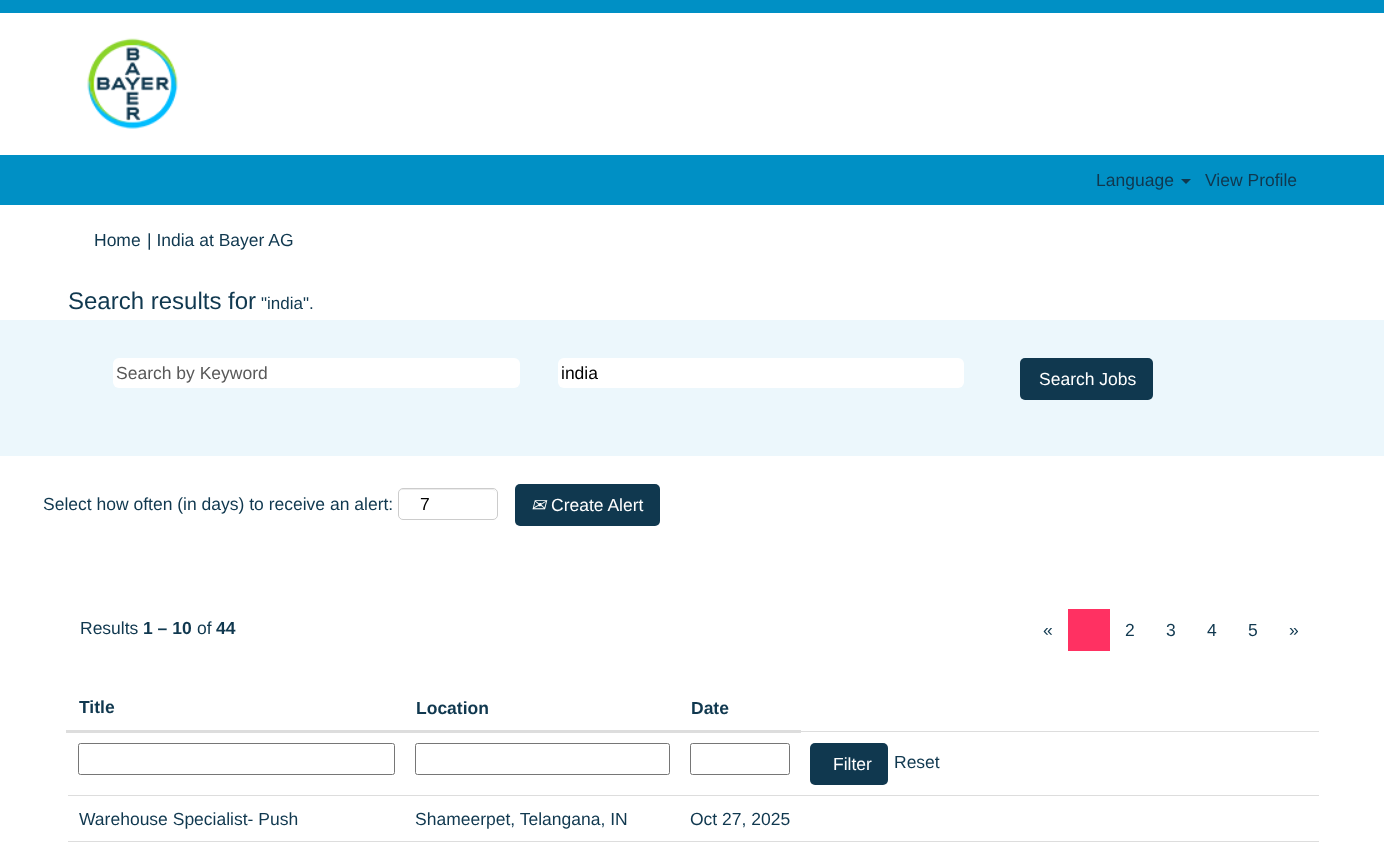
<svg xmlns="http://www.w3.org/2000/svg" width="1384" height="855">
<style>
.a{font:17.5px Liberation Sans;fill:#10384f}
.b{font:24px Liberation Sans;fill:#10384f}
.c{font:17px Liberation Sans;fill:#10384f}
.d{font:17.5px Liberation Sans;fill:#595959}
.e{font:17.5px Liberation Sans;fill:#000}
.f{font:17.5px Liberation Sans;fill:#fff}
.g{font:italic 17.5px DejaVu Sans;fill:#fff}
.h{font:bold 17.5px Liberation Sans;fill:#10384f}
</style>
<rect width="100%" height="100%" fill="#fff"/>
<path fill="#0090c5" d="M0 0h1384v13H0z"/>
<image href="1.png" x="87" y="38" width="91" height="91"/>
<path fill="#0090c5" d="M0 155h1384v50H0z"/>
<path fill="#10384f" d="M1181 179h10l-5 5z"/>
<path fill="#ecf7fc" d="M0 320h1384v136H0z"/>
<rect fill="#fff" x="113" y="358" width="407" height="30" rx="6"/>
<rect fill="#fff" x="558" y="358" width="406" height="30" rx="6"/>
<rect fill="#10384f" x="1020" y="358" width="133" height="42" rx="5"/>
<path fill="#ececec" d="M402 490h90c3 0 4 2 4 4c0-9-14-5-19-5h-59c-5 0-19-4-19 5c0-2 1-4 3-4z"/>
<rect fill="none" stroke="#ccc" x="398.5" y="488.5" width="99" height="31" rx="4.5"/>
<rect fill="#10384f" x="515" y="484" width="145" height="42" rx="5"/>
<path fill="#ff3162" d="M1068 609h42v42H1068z"/>
<path fill="#ddd" d="M800 731h519v1H800z"/>
<path fill="#ddd" d="M66 730h735v3H66z"/>
<rect fill="none" stroke="#767676" x="78.5" y="743.5" width="316" height="31" rx="2"/>
<rect fill="none" stroke="#767676" x="415.5" y="743.5" width="254" height="31" rx="2"/>
<rect fill="none" stroke="#767676" x="690.5" y="743.5" width="99" height="31" rx="2"/>
<rect fill="#10384f" x="810" y="743" width="78" height="42" rx="5"/>
<path fill="#ddd" d="M68 795h1251v1H68z"/>
<path fill="#ddd" d="M68 841h1251v1H68z"/>
<text class="a" x="1096" y="186">Language</text>
<text class="a" x="1205" y="186">View Profile</text>
<text class="a" x="94" y="246">Home</text>
<text class="a" x="147" y="246">| India at Bayer AG</text>
<text class="b" x="68" y="309">Search results for</text>
<text class="c" x="261" y="309">"india".</text>
<text class="d" x="116" y="379">Search by Keyword</text>
<text class="e" x="561" y="379">india</text>
<text class="f" x="1039" y="385">Search Jobs</text>
<text class="a" x="43" y="510">Select how often (in days) to receive an alert:</text>
<text class="e" x="420" y="510">7</text>
<text class="g" x="531" y="511">✉</text>
<text class="f" x="551" y="511">Create Alert</text>
<text class="a" x="80" y="634">Results</text>
<text class="h" x="143" y="634">1 – 10</text>
<text class="a" x="197" y="634">of</text>
<text class="h" x="216" y="634">44</text>
<text class="a" x="1043" y="636">«</text>
<text class="a" x="1125" y="636">2</text>
<text class="a" x="1166" y="636">3</text>
<text class="a" x="1207" y="636">4</text>
<text class="a" x="1248" y="636">5</text>
<text class="a" x="1289" y="636">»</text>
<text class="h" x="79" y="713">Title</text>
<text class="h" x="416" y="714">Location</text>
<text class="h" x="691" y="714">Date</text>
<text class="f" x="833" y="770">Filter</text>
<text class="a" x="894" y="768">Reset</text>
<text class="a" x="79" y="825">Warehouse Specialist- Push</text>
<text class="a" x="415" y="825">Shameerpet, Telangana, IN</text>
<text class="a" x="690" y="825">Oct 27, 2025</text>
</svg>
